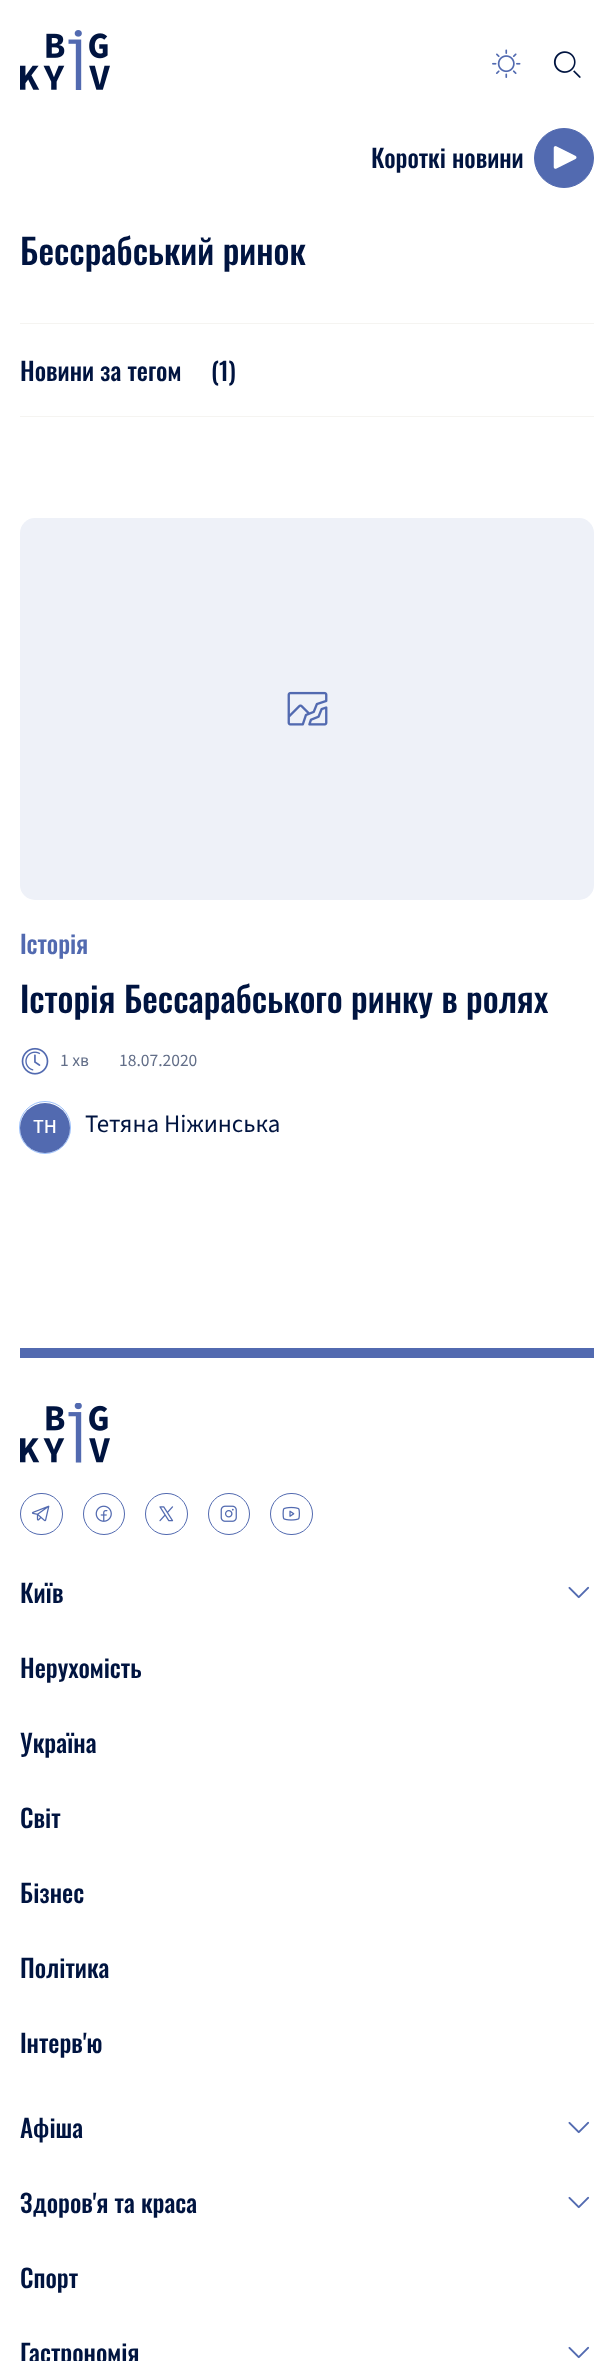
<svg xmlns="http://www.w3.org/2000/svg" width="613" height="2361">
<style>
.a{font:500 25px Oswald;fill:#001440}
.b{font:500 35px Oswald;fill:#001440}
.c{font:500 25px Oswald;fill:#526ab0}
.d{font:17.5px 'Source Sans 3';fill:#626e88}
.e{font:500 20px 'Source Sans 3';fill:#fff}
.f{font:25px 'Source Sans 3';fill:#001440}
</style>
<rect width="100%" height="100%" fill="#fff"/>
<image href="1.png" x="20" y="30" width="90" height="60"/>
<image href="2.png" x="492" y="49" width="29" height="29"/>
<image href="3.png" x="553" y="51" width="28" height="27"/>
<circle fill="#526ab0" stroke="#526ab0" cx="564" cy="158" r="29.5"/>
<image href="4.png" x="553" y="146" width="24" height="23"/>
<path fill="#f5f4f1" d="M20 323h574v1H20z"/>
<path fill="#f5f4f1" d="M20 416h574v1H20z"/>
<rect fill="#eef1f8" x="20" y="518" width="574" height="382" rx="15"/>
<image href="5.png" x="287" y="691" width="41" height="35"/>
<image href="6.png" x="21" y="1047" width="28" height="28"/>
<rect fill="none" stroke="#9dc1fb" x="19.5" y="1101.5" width="51" height="52" rx="25.5"/>
<circle fill="#526ab0" cx="45" cy="1128" r="25"/>
<path fill="#526ab0" d="M20 1348h574v10H20z"/>
<image href="7.png" x="20" y="1403" width="90" height="60"/>
<rect fill="none" stroke="#526ab0" x="20.5" y="1493.5" width="42" height="41" rx="20.5"/>
<image href="8.png" x="31" y="1505" width="19" height="17"/>
<circle fill="none" stroke="#526ab0" cx="104" cy="1514" r="20.5"/>
<image href="9.png" x="95" y="1505" width="17" height="17"/>
<rect fill="none" stroke="#526ab0" x="145.5" y="1493.5" width="42" height="41" rx="20.5"/>
<image href="10.png" x="159" y="1506" width="15" height="16"/>
<circle fill="none" stroke="#526ab0" cx="229" cy="1514" r="20.5"/>
<image href="11.png" x="220" y="1505" width="17" height="17"/>
<rect fill="none" stroke="#526ab0" x="270.5" y="1493.5" width="42" height="41" rx="20.5"/>
<image href="12.png" x="282" y="1506" width="18" height="15"/>
<image href="13.png" x="568" y="1586" width="22" height="13"/>
<image href="13.png" x="568" y="2121" width="22" height="13"/>
<image href="13.png" x="568" y="2196" width="22" height="13"/>
<image href="13.png" x="568" y="2346" width="22" height="13"/>
<text class="a" x="371" y="168">Короткі новини</text>
<text class="b" x="20" y="265">Бессрабський ринок</text>
<text class="a" x="20" y="381">Новини за тегом</text>
<text class="a" x="211" y="381">(1)</text>
<text class="c" x="20" y="954">Історія</text>
<text class="b" x="20" y="1013">Історія Бессарабського ринку в ролях</text>
<text class="d" x="60" y="1066">1 хв</text>
<text class="d" x="119" y="1066">18.07.2020</text>
<text class="e" x="33" y="1133">ТН</text>
<text class="f" x="85" y="1132">Тетяна Ніжинська</text>
<text class="a" x="20" y="1603">Київ</text>
<text class="a" x="20" y="1678">Нерухомість</text>
<text class="a" x="20" y="1753">Україна</text>
<text class="a" x="20" y="1828">Світ</text>
<text class="a" x="20" y="1903">Бізнес</text>
<text class="a" x="20" y="1978">Політика</text>
<text class="a" x="20" y="2053">Інтерв'ю</text>
<text class="a" x="20" y="2138">Афіша</text>
<text class="a" x="20" y="2213">Здоров'я та краса</text>
<text class="a" x="20" y="2288">Спорт</text>
<text class="a" x="20" y="2363">Гастрономія</text>
</svg>
